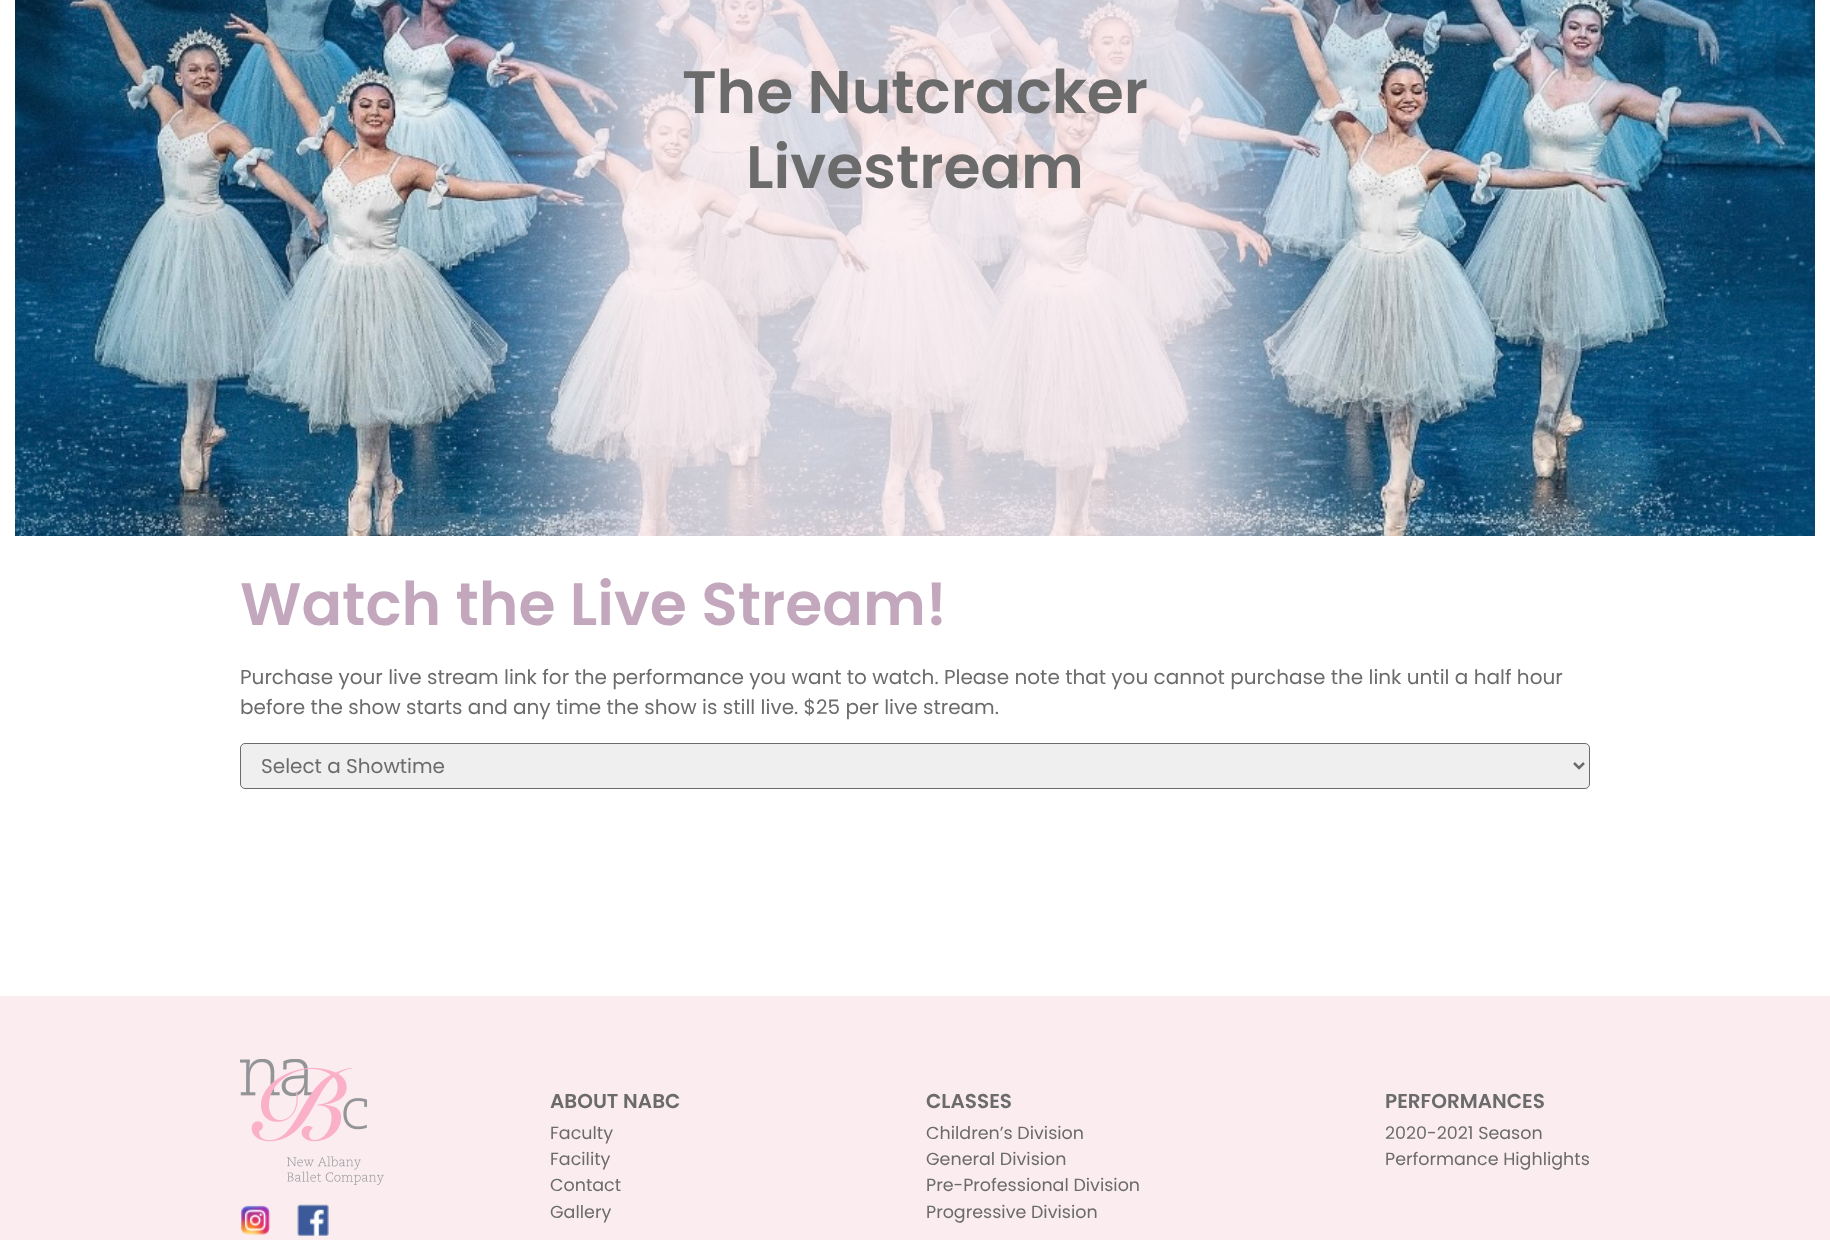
<svg xmlns="http://www.w3.org/2000/svg" width="1830" height="1240">
<style>
.a{font:600 60px Poppins;fill:#6b6b6b}
.b{font:600 60px Poppins;fill:#c3a7bd}
.c{font:20px Poppins;fill:#6b6b6b}
.d{font:600 20px Poppins;fill:#6b6b6b}
.e{font:17.5px Poppins;fill:#6b6b6b}
</style>
<rect width="100%" height="100%" fill="#fff"/>
<image href="1.png" x="15" y="0" width="1800" height="536"/>
<rect fill="#efefef" stroke="#6b6b6b" x="240.5" y="743.5" width="1349" height="45" rx="4.5"/>
<path fill="none" stroke="#6b6b6b" stroke-width="2.5" d="M1574 763l5 5l5-5"/>
<path fill="#fbecf0" d="M0 996h1830v244H0z"/>
<image href="2.png" x="240" y="1059" width="144" height="126"/>
<image href="3.png" x="241" y="1205" width="30" height="30"/>
<image href="4.png" x="297" y="1204" width="32" height="32"/>
<text class="a" x="682" y="113">The Nutcracker</text>
<text class="a" x="746" y="188">Livestream</text>
<text class="b" x="240" y="625">Watch the Live Stream!</text>
<text class="c" x="240" y="684">Purchase your live stream link for the performance you want to watch. Please note that you cannot purchase the link until a half hour</text>
<text class="c" x="240" y="714">before the show starts and any time the show is still live. $25 per live stream.</text>
<text class="c" x="261" y="773">Select a Showtime</text>
<text class="d" x="550" y="1108">ABOUT NABC</text>
<text class="e" x="550" y="1139">Faculty</text>
<text class="e" x="550" y="1165">Facility</text>
<text class="e" x="550" y="1191">Contact</text>
<text class="e" x="550" y="1218">Gallery</text>
<text class="d" x="926" y="1108">CLASSES</text>
<text class="e" x="926" y="1139">Children’s Division</text>
<text class="e" x="926" y="1165">General Division</text>
<text class="e" x="926" y="1191">Pre-Professional Division</text>
<text class="e" x="926" y="1218">Progressive Division</text>
<text class="d" x="1385" y="1108">PERFORMANCES</text>
<text class="e" x="1385" y="1139">2020-2021 Season</text>
<text class="e" x="1385" y="1165">Performance Highlights</text>
</svg>
